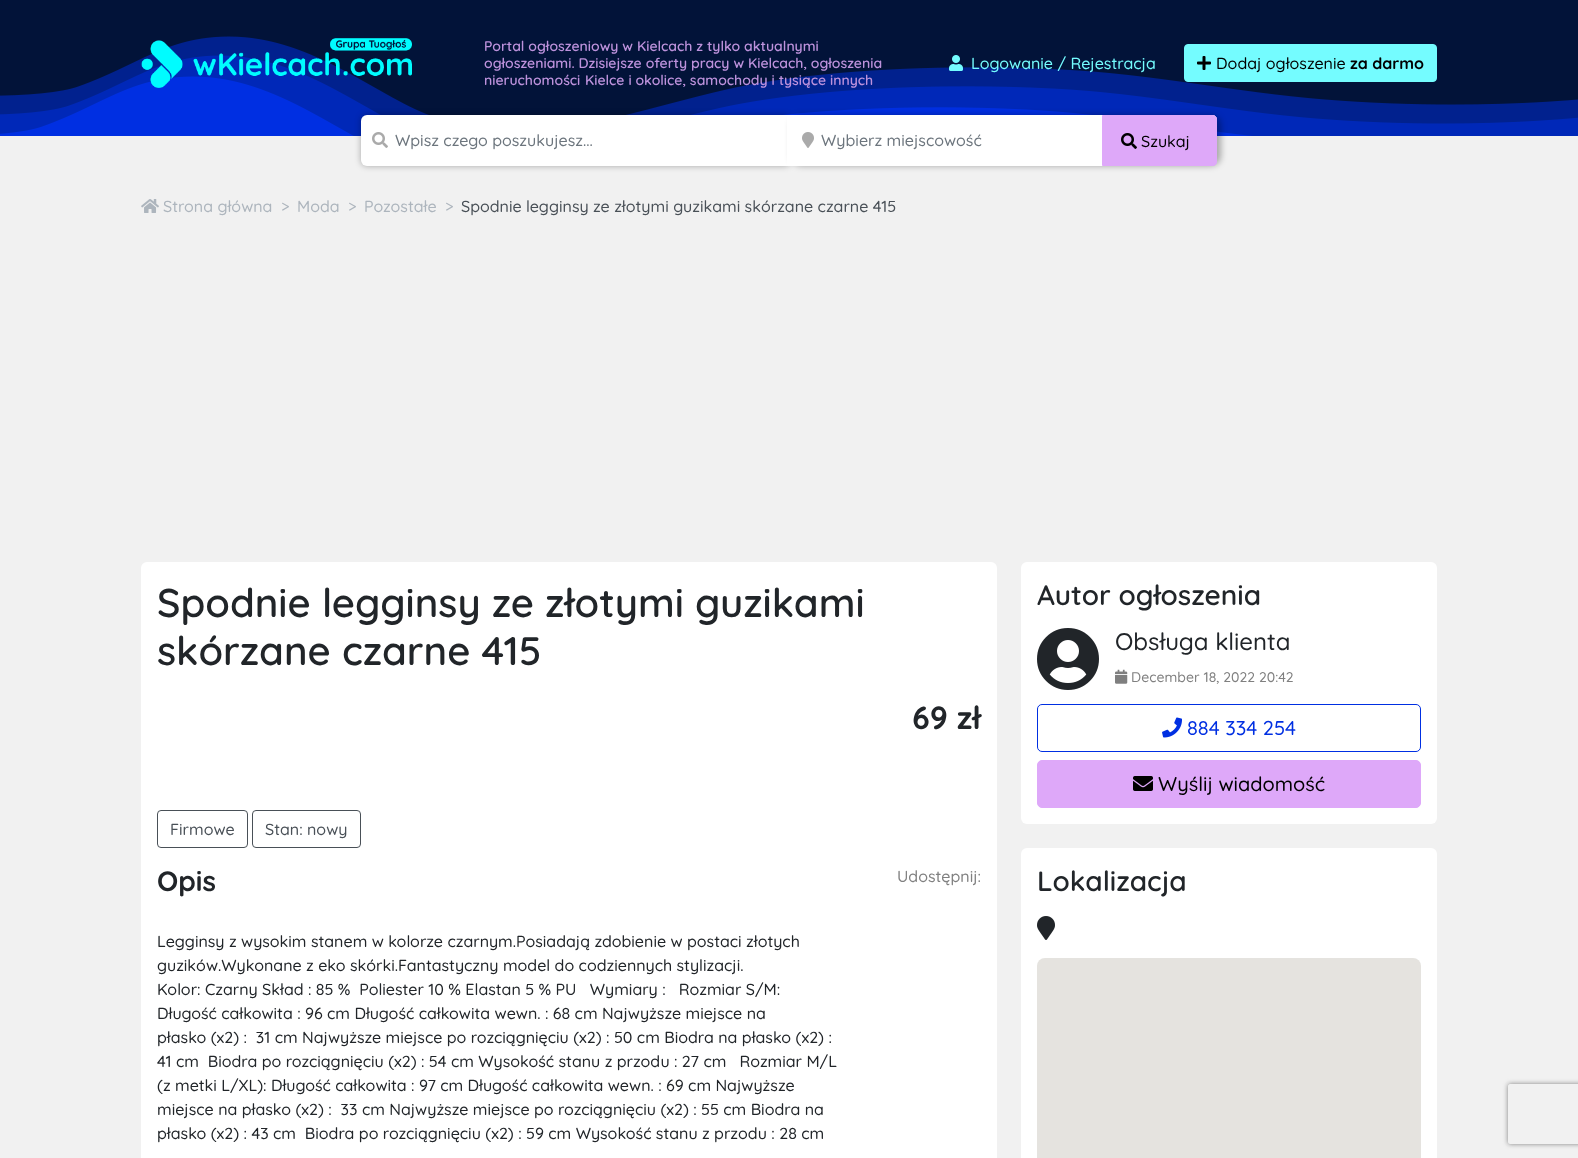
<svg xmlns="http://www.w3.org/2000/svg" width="1578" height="1158">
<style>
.a{font:600 14px Quicksand;fill:#bd92dc}
.b{font:500 16px Quicksand;fill:#74fcff}
.c{font:500 16px Quicksand;fill:#000}
.d{font:bold 16px Quicksand;fill:#000}
.e{font:500 16px Quicksand;fill:#6c757d}
.f{font:500 16px Quicksand;fill:#adb5bd}
.g{font:500 16px Quicksand;fill:#495057}
.h{font:600 40px Quicksand;fill:#212529}
.i{font:bold 32px Quicksand;fill:#212529}
.j{font:bold 28px Quicksand;fill:#212529}
.k{font:500 16px Quicksand;fill:#212529}
.l{font:500 16px Quicksand;fill:#808080}
.m{font:600 28px Quicksand;fill:#212529}
.n{font:500 24px Quicksand;fill:#212529}
.o{font:500 14px Quicksand;fill:#808080}
.p{font:500 20px Quicksand;fill:#002fe2}
.q{font:500 20px Quicksand;fill:#000}
</style>
<defs>
<clipPath id="clip1"><path d="M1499 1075h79v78h-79zm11 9h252c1 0 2 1 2 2v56c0 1-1 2-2 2h-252c-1 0-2-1-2-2v-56c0-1 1-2 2-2z" clip-rule="evenodd"/></clipPath>
</defs>
<rect width="100%" height="100%" fill="#f1f1f1"/>
<path fill="#021339" d="M0 0h1578v36H0z"/>
<image href="1.png" x="0" y="36" width="1578" height="100"/>
<image href="2.png" x="141" y="38" width="271" height="50"/>
<image href="3.png" x="949" y="55" width="14" height="16"/>
<rect fill="#74fcff" stroke="#74fcff" x="1184.5" y="44.5" width="252" height="37" rx="3.5"/>
<image href="4.png" x="1197" y="56" width="14" height="14"/>
<rect fill="#0000004d" filter="blur(3px)" x="361" y="115" width="430" height="51" rx="6"/>
<rect fill="#fff" x="361" y="115" width="430" height="51" rx="6"/>
<image href="5.png" x="372" y="132" width="16" height="16"/>
<path fill="#fff" d="M785 115h2v51H785z"/>
<rect fill="#0000004d" filter="blur(3px)" x="791" y="115" width="430" height="51" rx="10"/>
<path fill="#fff" d="M787 115h425c3 0 5 2 5 5v36c0 5.5-4.5 10-10 10h-420z"/>
<image href="6.png" x="802" y="132" width="12" height="16"/>
<path fill="#dea8f9" stroke="#dea8f9" d="M1102.5 115.5h110.5c2 0 3.5 1.5 3.5 3.5v43c0 2-1.5 3.5-3.5 3.5h-110.5z"/>
<image href="7.png" x="1121" y="133" width="16" height="16"/>
<image href="8.png" x="141" y="199" width="18" height="14"/>
<rect fill="#fff" x="141" y="562" width="856" height="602" rx="6"/>
<rect fill="none" stroke="#495057" x="157.5" y="810.5" width="90" height="37" rx="3.5"/>
<rect fill="none" stroke="#495057" x="252.5" y="810.5" width="108" height="37" rx="3.5"/>
<rect fill="#fff" x="1021" y="562" width="416" height="262" rx="6"/>
<image href="9.png" x="1037" y="628" width="62" height="62"/>
<image href="10.png" x="1115" y="669" width="13" height="15"/>
<rect fill="none" stroke="#002fe2" x="1037.5" y="704.5" width="383" height="47" rx="4.5"/>
<image href="11.png" x="1162" y="717" width="20" height="21"/>
<rect fill="#dea8f9" stroke="#dea8f9" x="1037.5" y="760.5" width="383" height="47" rx="4.5"/>
<image href="12.png" x="1133" y="776" width="20" height="15"/>
<rect fill="#fff" x="1021" y="848" width="416" height="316" rx="6"/>
<image href="13.png" x="1037" y="916" width="18" height="24"/>
<rect fill="#e5e3df" x="1037" y="958" width="384" height="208" rx="8"/>
<g clip-path="url(#clip1)">
<rect fill="#808080" filter="blur(2.5px)" x="1508" y="1084" width="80" height="60" rx="2"/>
</g>
<text class="a" x="484" y="51">Portal ogłoszeniowy w Kielcach z tylko aktualnymi</text>
<text class="a" x="484" y="68">ogłoszeniami. Dzisiejsze oferty pracy w Kielcach, ogłoszenia</text>
<text class="a" x="484" y="85">nieruchomości</text>
<text class="a" x="585" y="85">Kielce i okolice, samochody i tysiące innych</text>
<text class="b" x="971" y="69">Logowanie / Rejestracja</text>
<text class="c" x="1216" y="69">Dodaj ogłoszenie</text>
<text class="d" x="1350" y="69">za darmo</text>
<text class="e" x="395" y="146">Wpisz czego poszukujesz...</text>
<text class="e" x="821" y="146">Wybierz miejscowość</text>
<text class="c" x="1141" y="147">Szukaj</text>
<text class="f" x="163" y="212">Strona główna</text>
<text class="f" x="281" y="212">&gt;</text>
<text class="f" x="297" y="212">Moda</text>
<text class="f" x="348" y="212">&gt;</text>
<text class="f" x="364" y="212">Pozostałe</text>
<text class="f" x="445" y="212">&gt;</text>
<text class="g" x="461" y="212">Spodnie legginsy ze złotymi guzikami skórzane czarne 415</text>
<text class="h" x="157" y="617">Spodnie legginsy ze złotymi guzikami</text>
<text class="h" x="157" y="665">skórzane czarne 415</text>
<text class="i" x="912" y="729">69 zł</text>
<text class="g" x="170" y="835">Firmowe</text>
<text class="g" x="265" y="835">Stan: nowy</text>
<text class="j" x="157" y="891">Opis</text>
<text class="k" x="157" y="947">Legginsy z wysokim stanem w kolorze czarnym.Posiadają zdobienie w postaci złotych</text>
<text class="k" x="157" y="971">guzików.Wykonane z eko skórki.Fantastyczny model do codziennych stylizacji.</text>
<text class="k" xml:space="preserve" x="157" y="995">Kolor: Czarny Skład : 85 %  Poliester 10 % Elastan 5 % PU   Wymiary :   Rozmiar S/M:</text>
<text class="k" x="157" y="1019">Długość całkowita : 96 cm Długość całkowita wewn. : 68 cm Najwyższe miejsce na</text>
<text class="k" xml:space="preserve" x="157" y="1043">płasko (x2) :  31 cm Najwyższe miejsce po rozciągnięciu (x2) : 50 cm Biodra na płasko (x2) :</text>
<text class="k" xml:space="preserve" x="157" y="1067">41 cm  Biodra po rozciągnięciu (x2) : 54 cm Wysokość stanu z przodu : 27 cm   Rozmiar M/L</text>
<text class="k" x="157" y="1091">(z metki L/XL): Długość całkowita : 97 cm Długość całkowita wewn. : 69 cm Najwyższe</text>
<text class="k" xml:space="preserve" x="157" y="1115">miejsce na płasko (x2) :  33 cm Najwyższe miejsce po rozciągnięciu (x2) : 55 cm Biodra na</text>
<text class="k" xml:space="preserve" x="157" y="1139">płasko (x2) : 43 cm  Biodra po rozciągnięciu (x2) : 59 cm Wysokość stanu z przodu : 28 cm</text>
<text class="l" x="897" y="882">Udostępnij:</text>
<text class="m" x="1037" y="605">Autor ogłoszenia</text>
<text class="n" x="1115" y="650">Obsługa klienta</text>
<text class="o" x="1131" y="682">December 18, 2022 20:42</text>
<text class="p" x="1187" y="735">884 334 254</text>
<text class="q" x="1158" y="791">Wyślij wiadomość</text>
<text class="m" x="1037" y="891">Lokalizacja</text>
</svg>
